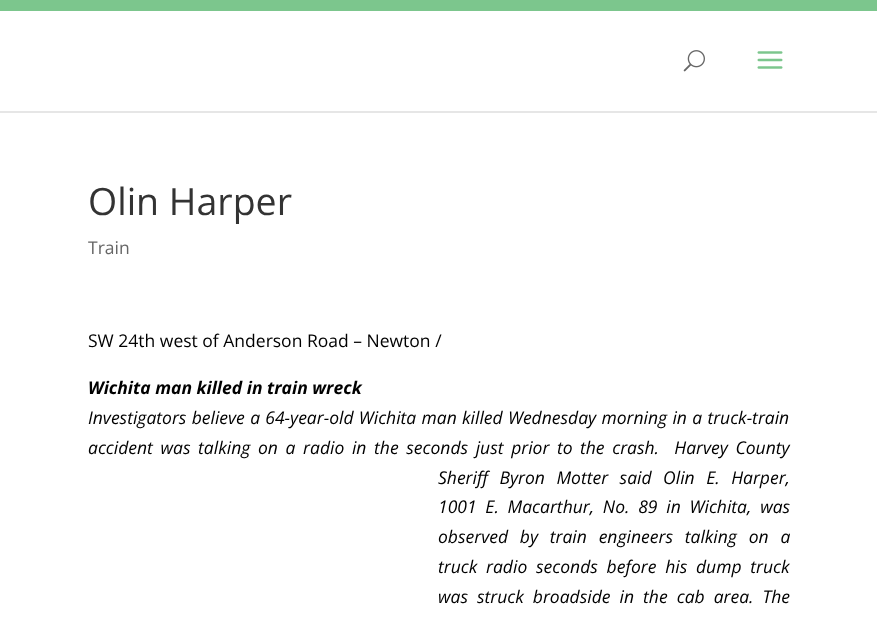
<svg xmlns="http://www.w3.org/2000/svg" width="877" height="628">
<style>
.a{font:37.5px Open Sans;fill:#333}
.b{font:17.5px Open Sans;fill:#666}
.c{font:17.5px Open Sans;fill:#000}
.d{font:italic bold 17.5px Open Sans;fill:#000}
.e{font:italic 17.5px Open Sans;fill:#000}
</style>
<rect width="100%" height="100%" fill="#fff"/>
<path fill="#7cc68d" d="M0 0h877v11H0z"/>
<path fill="#e6e6e6" d="M0 111v2h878v-100v98z"/>
<image href="1.png" x="683" y="50" width="22" height="22"/>
<image href="2.png" x="757" y="51" width="26" height="18"/>
<text class="a" x="88" y="215">Olin Harper</text>
<text class="b" x="88" y="254">Train</text>
<text class="c" x="88" y="347">SW 24th west of Anderson Road – Newton /</text>
<text class="d" x="88" y="394">Wichita man killed in train wreck</text>
<text class="e" x="88" y="424" word-spacing="0.75">Investigators believe a 64-year-old Wichita man killed Wednesday morning in a truck-train</text>
<text class="e" x="88" y="454" word-spacing="3.1">accident was talking on a radio in the seconds just prior to</text>
<text class="e" xml:space="preserve" x="580" y="454" word-spacing="3.1">the crash.  Harvey County</text>
<text class="e" x="438" y="484" word-spacing="7">Sheriff Byron Motter said Olin E. Harper,</text>
<text class="e" x="438" y="513" word-spacing="4.25">1001 E. Macarthur, No. 89 in Wichita, was</text>
<text class="e" x="438" y="543" word-spacing="7.25">observed by train engineers talking on a</text>
<text class="e" x="438" y="573" word-spacing="4.25">truck radio seconds before his dump truck</text>
<text class="e" x="438" y="603" word-spacing="4.5">was struck broadside in the cab area. The</text>
</svg>
